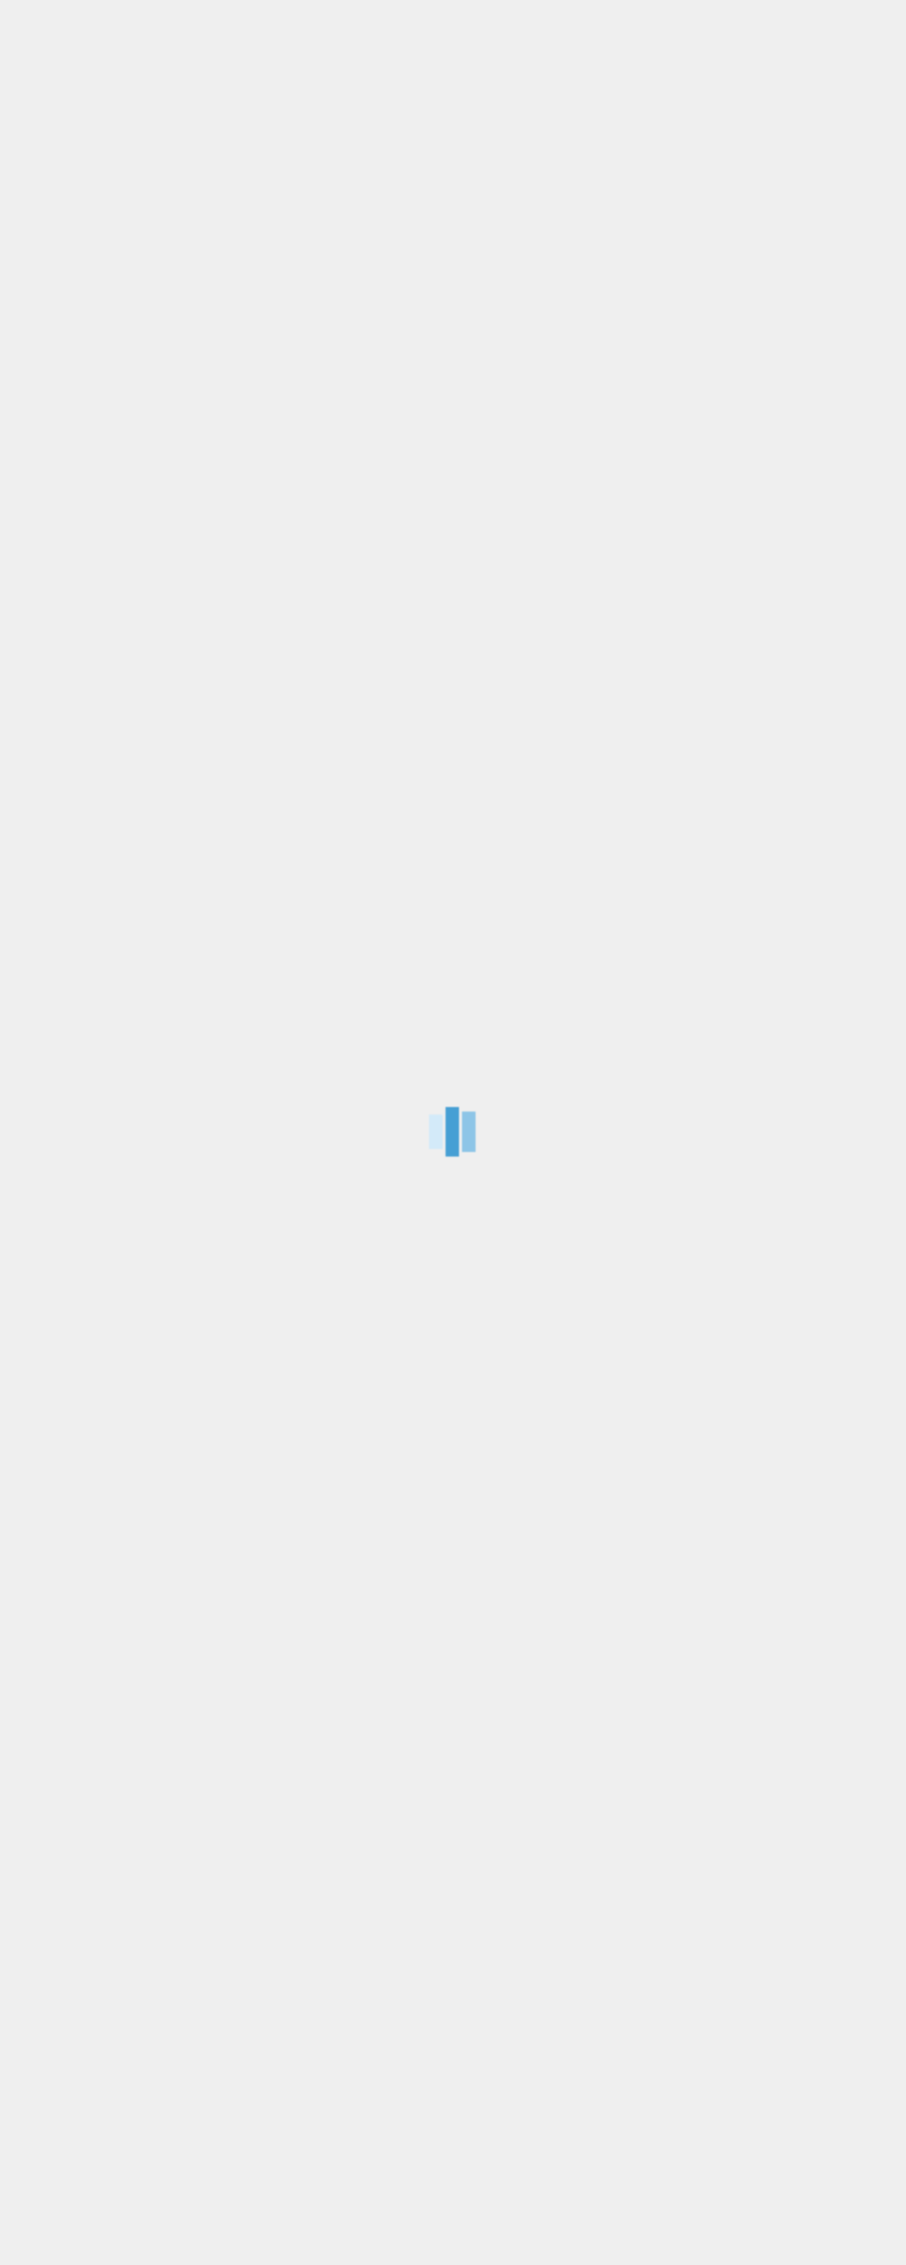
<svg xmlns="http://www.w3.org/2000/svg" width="906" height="2265">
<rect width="100%" height="100%" fill="#efefef"/>
<image href="1.png" x="428" y="1106" width="49" height="52"/>
</svg>
